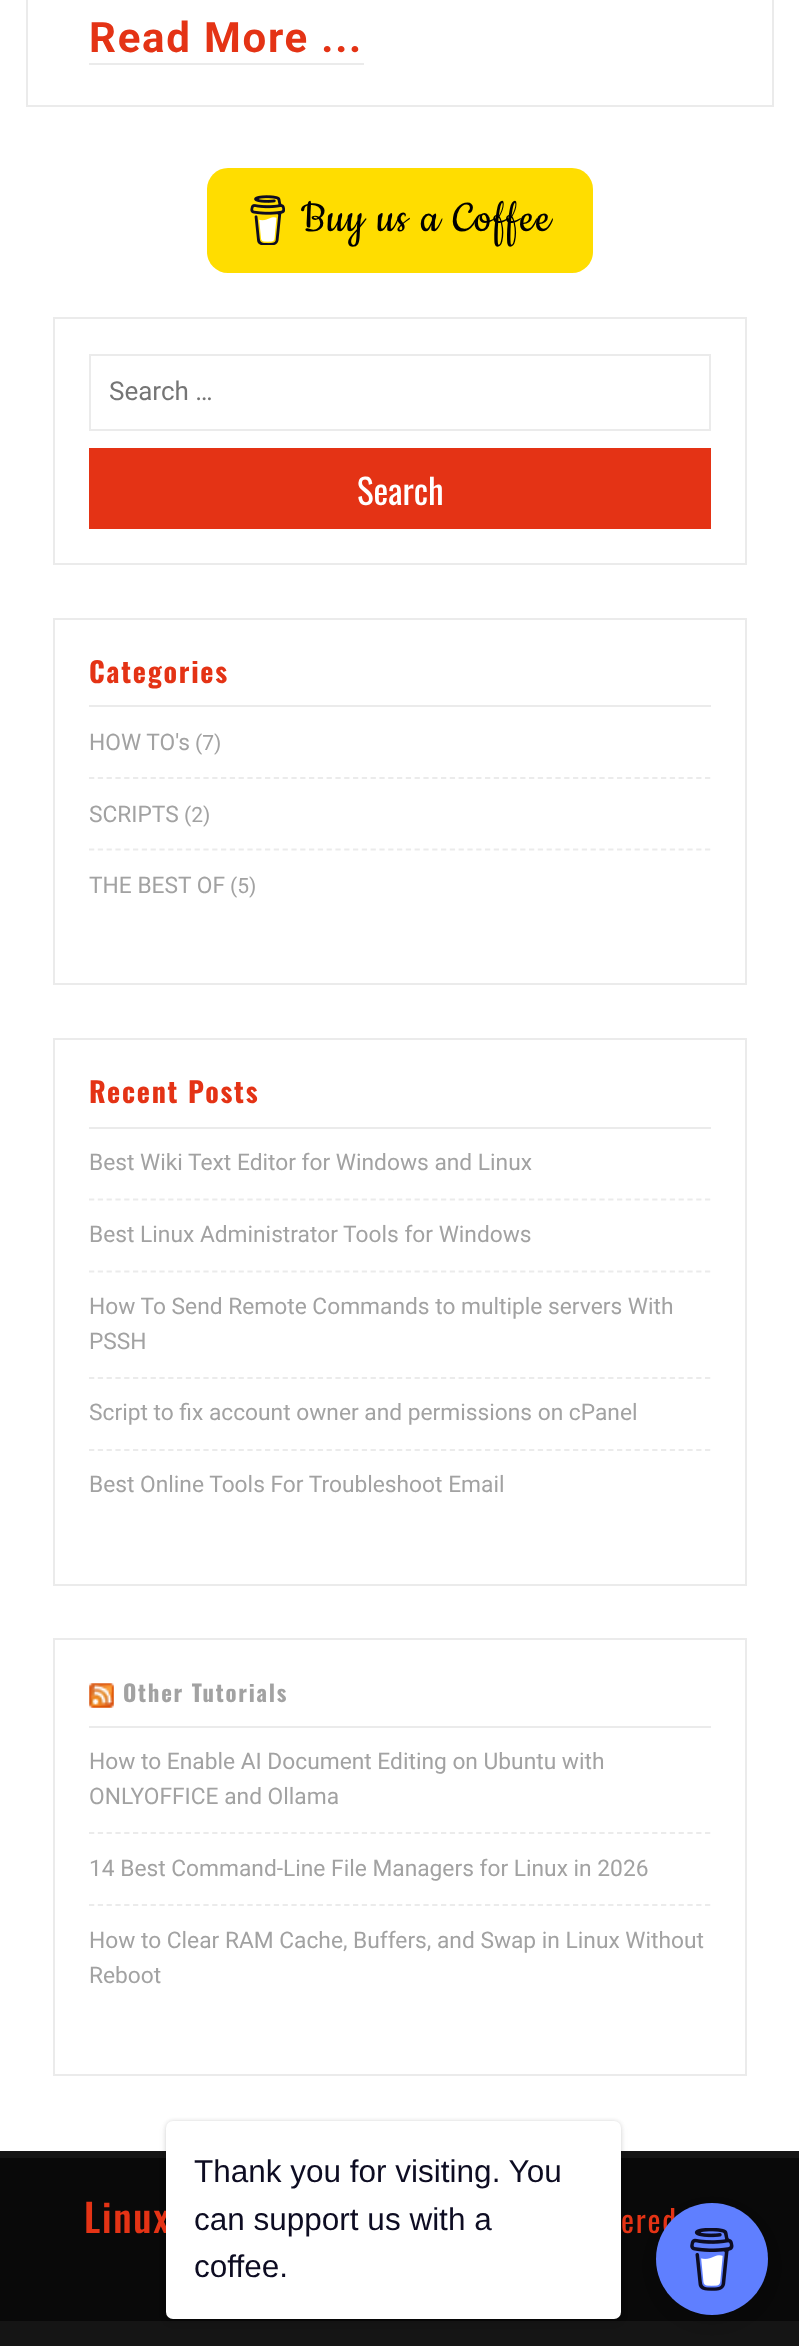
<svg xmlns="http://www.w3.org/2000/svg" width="799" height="2346">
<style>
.a{font:bold 42px Roboto;letter-spacing:1.75px;fill:#e43315}
.b{font:49px Cookie;letter-spacing:1.75px;fill:#000}
.c{font:26px Roboto;fill:#757575}
.d{font:35px Oswald;fill:#fff}
.e{font:bold 28px Oswald;letter-spacing:1.75px;fill:#e43315}
.f{font:22.75px Roboto;fill:#a2a2a2}
.g{font:21px Roboto;fill:#a2a2a2}
.h{font:bold 22.75px Oswald;letter-spacing:1.75px;fill:#a2a2a2}
.i{font:500 38.5px Oswald;letter-spacing:1.75px;fill:#e43315}
.j{font:31.5px Liberation Sans;fill:#0d0c22}
.k{font:31px Oswald;letter-spacing:1.75px;fill:#e43315}
</style>
<rect width="100%" height="100%" fill="#fff"/>
<path fill="none" stroke="#ebebeb" stroke-width="2" d="M27 -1h746v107H27z"/>
<path fill="#ebebeb" d="M89 63h275v2H89z"/>
<rect fill="#fd0" x="207" y="168" width="386" height="105" rx="21"/>
<image href="1.png" x="250" y="195" width="35" height="50"/>
<path fill="none" stroke="#ebebeb" stroke-width="2" d="M54 318h692v246H54z"/>
<path fill="none" stroke="#ebebeb" stroke-width="2" d="M90 355h620v75H90z"/>
<path fill="#e43315" d="M89 448h622v81H89z"/>
<path fill="none" stroke="#ebebeb" stroke-width="2" d="M54 619h692v365H54z"/>
<path fill="#ebebeb" d="M89 705h622v2H89z"/>
<path fill="none" stroke="#ebebeb" stroke-width="1.8" stroke-dasharray="5.25 3.55" d="M89 778h621.5"/>
<path fill="none" stroke="#ebebeb" stroke-width="1.8" stroke-dasharray="5.25 3.55" d="M89 849.5h621.5"/>
<path fill="none" stroke="#ebebeb" stroke-width="2" d="M54 1039h692v546H54z"/>
<path fill="#ebebeb" d="M89 1127h622v2H89z"/>
<path fill="none" stroke="#ebebeb" stroke-width="1.8" stroke-dasharray="5.25 3.55" d="M89 1199.5h621.5"/>
<path fill="none" stroke="#ebebeb" stroke-width="1.8" stroke-dasharray="5.25 3.55" d="M89 1271.5h621.5"/>
<path fill="none" stroke="#ebebeb" stroke-width="1.8" stroke-dasharray="5.25 3.55" d="M89 1378h621.5"/>
<path fill="none" stroke="#ebebeb" stroke-width="1.8" stroke-dasharray="5.25 3.55" d="M89 1450h621.5"/>
<path fill="none" stroke="#ebebeb" stroke-width="2" d="M54 1639h692v436H54z"/>
<path fill="#ebebeb" d="M89 1726h622v2H89z"/>
<image href="2.png" x="89" y="1683" width="25" height="25"/>
<path fill="none" stroke="#ebebeb" stroke-width="1.8" stroke-dasharray="5.25 3.55" d="M89 1833h621.5"/>
<path fill="none" stroke="#ebebeb" stroke-width="1.8" stroke-dasharray="5.25 3.55" d="M89 1905h621.5"/>
<path fill="#151515" d="M0 2151h799v195H0z"/>
<path fill="#090909" d="M0 2158h799v163H0z"/>
<rect fill="#00000026" filter="blur(2px)" x="166" y="2121" width="455" height="198" rx="7"/>
<rect fill="#0000000d" filter="blur(4.5px)" x="166" y="2125" width="455" height="197" rx="7"/>
<rect fill="#00000026" filter="blur(7px)" x="656" y="2210" width="112" height="112" rx="56"/>
<text class="a" x="89" y="52">Read More ...</text>
<text class="b" x="301" y="231">Buy us a Coffee</text>
<text class="c" x="109" y="400">Search …</text>
<text class="d" x="357" y="505">Search</text>
<text class="e" x="89" y="683">Categories</text>
<text class="f" x="89" y="750">HOW TO's</text>
<text class="g" x="195" y="750">(7)</text>
<text class="f" x="89" y="822">SCRIPTS</text>
<text class="g" x="184" y="822">(2)</text>
<text class="f" x="89" y="893">THE BEST OF</text>
<text class="g" x="230" y="893">(5)</text>
<text class="e" x="89" y="1103">Recent Posts</text>
<text class="f" x="89" y="1170">Best Wiki Text Editor for Windows and Linux</text>
<text class="f" x="89" y="1242">Best Linux Administrator Tools for Windows</text>
<text class="f" x="89" y="1314">How To Send Remote Commands to multiple servers With</text>
<text class="f" x="89" y="1349">PSSH</text>
<text class="f" x="89" y="1420">Script to fix account owner and permissions on cPanel</text>
<text class="f" x="89" y="1492">Best Online Tools For Troubleshoot Email</text>
<text class="h" x="123" y="1702">Other Tutorials</text>
<text class="f" x="89" y="1769">How to Enable AI Document Editing on Ubuntu with</text>
<text class="f" x="89" y="1804">ONLYOFFICE and Ollama</text>
<text class="f" x="89" y="1876">14 Best Command-Line File Managers for Linux in 2026</text>
<text class="f" x="89" y="1948">How to Clear RAM Cache, Buffers, and Swap in Linux Without</text>
<text class="f" x="89" y="1983">Reboot</text>
<text class="i" x="84" y="2233">Linux</text>
<rect fill="#fff" x="166" y="2121" width="455" height="198" rx="7"/>
<text class="j" x="194" y="2277">coffee.</text>
<text class="j" x="194" y="2230">can support us with a</text>
<text class="j" x="194" y="2182">Thank you for visiting. You</text>
<text class="k" x="621" y="2233">ered</text>
<circle fill="#5f7fff" cx="712" cy="2259" r="56"/>
<image href="3.png" x="690" y="2228" width="44" height="63"/>
</svg>
